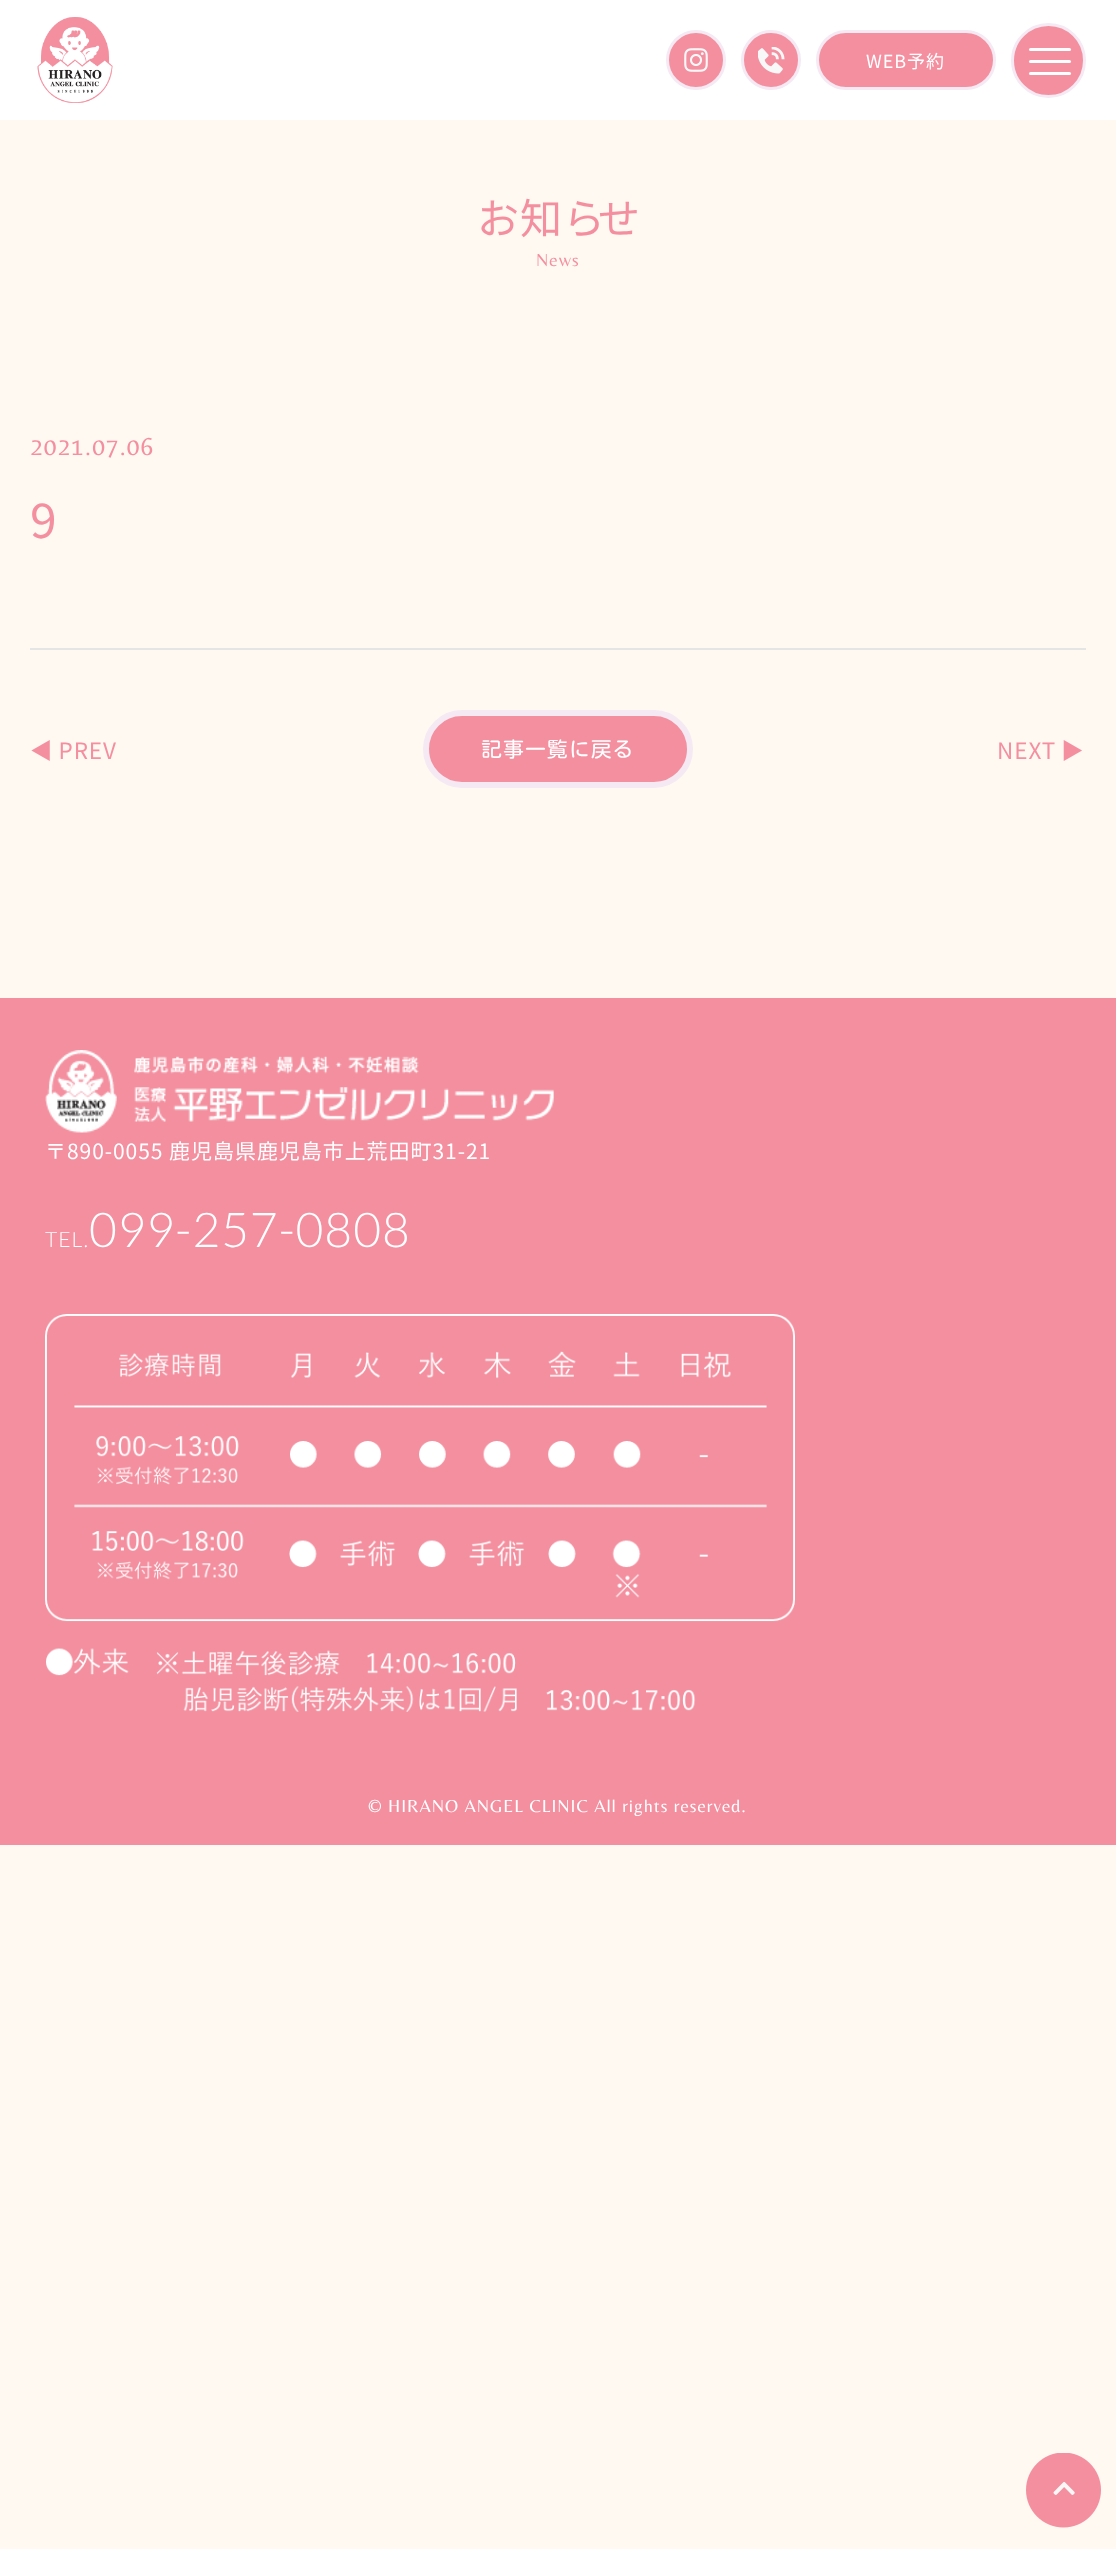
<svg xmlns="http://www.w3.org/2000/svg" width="1116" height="2549">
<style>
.a{font:18px Noto Sans JP;letter-spacing:0.95px;fill:#fff}
.b{font:42px Noto Sans JP;letter-spacing:0.95px;fill:#f48f9f}
.c{font:18px Belleza;letter-spacing:0.95px;fill:#f48f9f}
.d{font:25.5px Belleza;letter-spacing:0.95px;fill:#f48f9f}
.e{font:48px Noto Sans JP;letter-spacing:0.95px;fill:#f48f9f}
.f{font:22.5px Noto Sans JP;letter-spacing:0.95px;fill:#f48f9f}
.g{font:21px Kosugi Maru;letter-spacing:0.95px;fill:#fff}
.h{font:21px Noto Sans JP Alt;letter-spacing:0.95px;fill:#fff}
.i{font:300 21px Lato;letter-spacing:0.95px;fill:#fff}
.j{font:300 48px Lato;letter-spacing:0.95px;fill:#fff}
.k{font:18px Belleza;letter-spacing:0.95px;fill:#fff}
</style>
<rect width="100%" height="100%" fill="#fff9f2"/>
<path fill="#fff" d="M0 0h1116v120H0z"/>
<image href="1.png" x="37" y="17" width="76" height="86"/>
<circle fill="#f48f9f" stroke="#f5e9f3" stroke-width="3" cx="696" cy="60" r="28.5"/>
<image href="2.png" x="684" y="48" width="24" height="24"/>
<circle fill="#f48f9f" stroke="#f5e9f3" stroke-width="3" cx="771" cy="60" r="28.5"/>
<image href="3.png" x="758" y="47" width="27" height="27"/>
<rect fill="#f48f9f" stroke="#f5e9f3" stroke-width="3" x="817.5" y="31.5" width="177" height="57" rx="28.5"/>
<circle fill="#f48f9f" stroke="#f5e9f3" stroke-width="3" cx="1048.5" cy="60.5" r="36"/>
<rect fill="#fff" x="1029" y="48" width="42" height="3" rx="1.5"/>
<rect fill="#fff" x="1029" y="60" width="42" height="3" rx="1.5"/>
<rect fill="#fff" x="1029" y="72" width="42" height="3" rx="1.5"/>
<path fill="#e5e5e5" d="M30 648h1056v2H30z"/>
<rect fill="#f48f9f" stroke="#f5e9f3" stroke-width="6" x="426" y="713" width="264" height="72" rx="36"/>
<path fill="#f48f9f" d="M0 998h1116v847H0z"/>
<image href="4.png" x="45" y="1050" width="509" height="83"/>
<image href="5.png" x="45" y="1314" width="750" height="398"/>
<image href="6.png" x="1026" y="2453" width="75" height="75"/>
<text class="a" x="866" y="68">WEB予約</text>
<text class="b" x="477" y="234">お知ら</text>
<text class="b" x="598" y="234">せ</text>
<text class="c" x="536" y="266">News</text>
<text class="d" x="30" y="455">2021.07.06</text>
<text class="e" x="30" y="538">9</text>
<text class="f" x="30" y="759" word-spacing="-1">◀︎ PREV</text>
<text class="g" x="481" y="757">記事一覧に戻る</text>
<text class="f" x="997" y="759" word-spacing="-1">NEXT ▶︎</text>
<text class="h" x="45" y="1159">〒890-0055 鹿児島県鹿児島市上荒田町31-21</text>
<text class="i" x="45" y="1247">TEL.</text>
<text class="j" x="89" y="1247">099-257-0808</text>
<text class="k" x="368" y="1812">© HIRANO ANGEL CLINIC All rights reserved.</text>
</svg>
